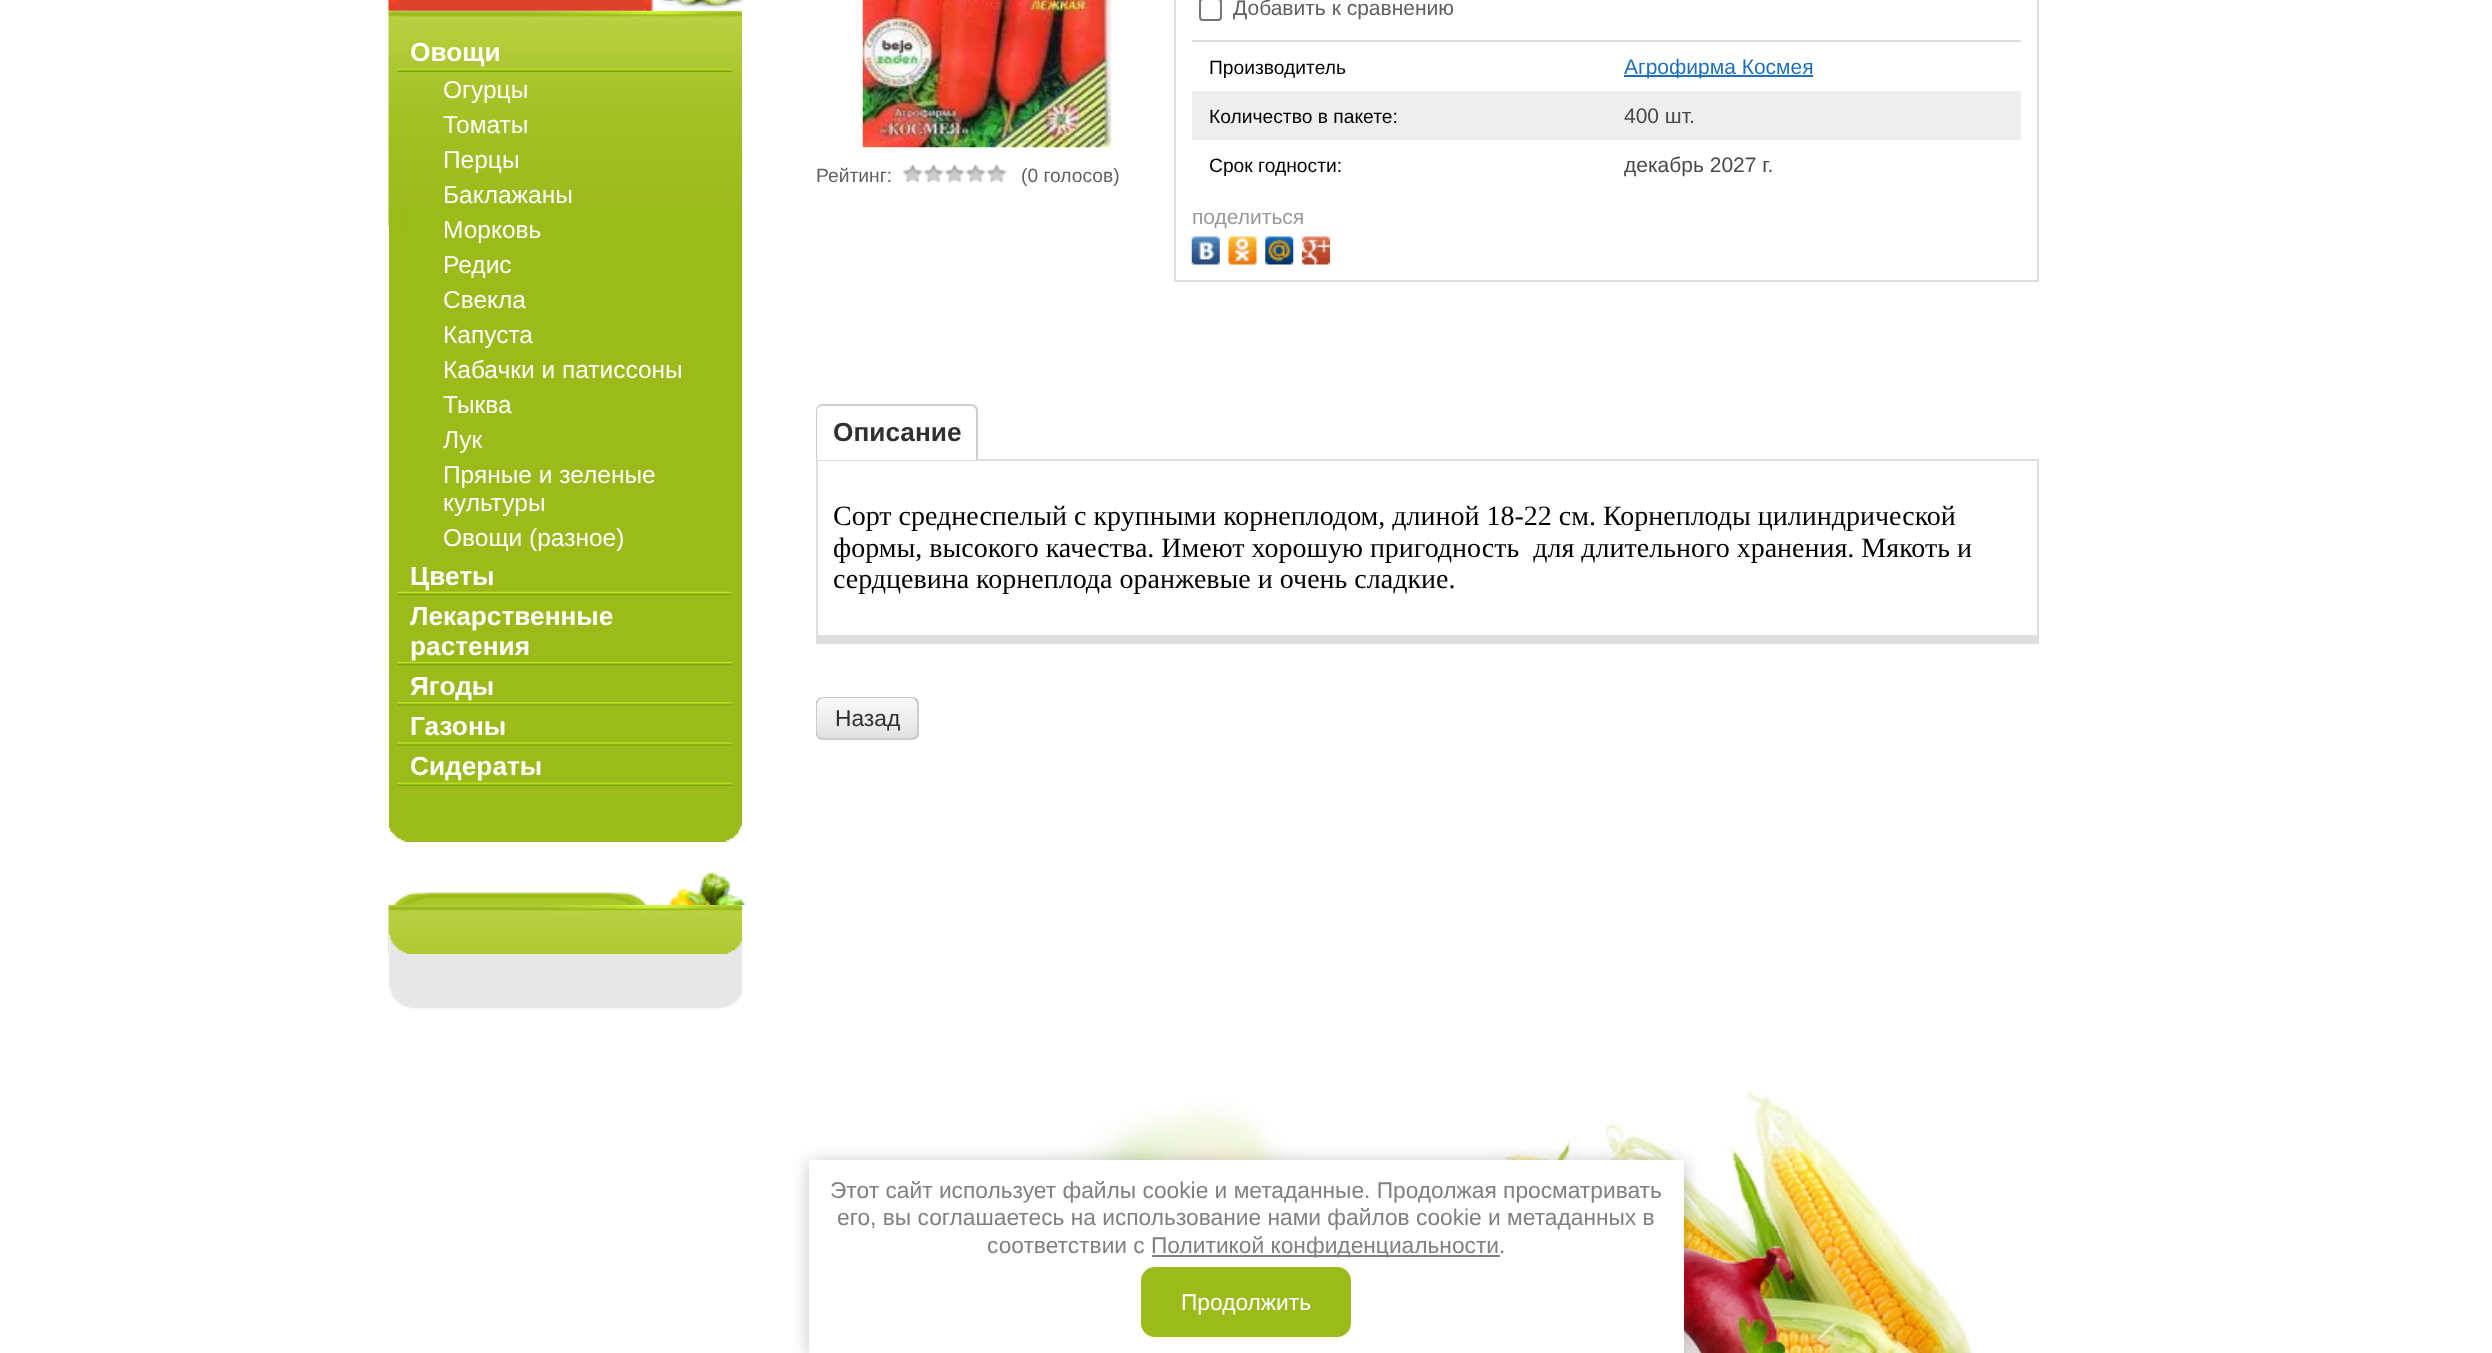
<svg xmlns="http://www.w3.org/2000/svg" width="2492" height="1353">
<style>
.a{font:bold 26.25px Liberation Sans;fill:#fff}
.b{font:24.5px Liberation Sans;fill:#fff}
.c{font:19.25px Liberation Sans;fill:#635f5e}
.d{font:21px Liberation Sans;fill:#635f5e}
.e{font:19.25px Liberation Sans;fill:#000}
.f{font:21px Liberation Sans;fill:#1d70bd}
.g{font:21px Liberation Sans;fill:#494949}
.h{font:21px Liberation Sans;fill:#999}
.i{font:bold 26.25px Liberation Sans;fill:#303030}
.j{font:28px Liberation Serif;fill:#000}
.k{font:22.75px Liberation Sans;fill:#303030}
.l{font:22.75px Liberation Sans;fill:#808080}
.m{font:22.75px Liberation Sans;fill:#fff}
</style>
<defs>
<linearGradient id="g1" gradientUnits="userSpaceOnUse" x1="867" y1="697" x2="867" y2="740"><stop offset="0" stop-color="#fafafa"/><stop offset="1" stop-color="#e1e1e1"/></linearGradient>
</defs>
<rect width="100%" height="100%" fill="#fff"/>
<image href="1.png" x="862" y="1088" width="1113" height="265"/>
<image href="3.png" x="388" y="10" width="354" height="216"/>
<image href="2.png" x="388" y="0" width="356" height="11"/>
<path fill="#9bbb1a" d="M389 226h353v616H389z"/>
<image href="4.png" x="389" y="825" width="353" height="17"/>
<image href="5.png" x="397" y="68" width="335" height="4"/>
<image href="6.png" x="397" y="591" width="335" height="5"/>
<image href="6.png" x="397" y="661" width="335" height="5"/>
<image href="7.png" x="397" y="702" width="335" height="4"/>
<image href="8.png" x="397" y="742" width="335" height="4"/>
<image href="9.png" x="397" y="782" width="335" height="4"/>
<image href="10.png" x="393" y="871" width="353" height="34"/>
<image href="11.png" x="388" y="905" width="354" height="49"/>
<image href="12.png" x="388" y="934" width="354" height="20"/>
<path fill="#e7e7e7" d="M389 954h353v32H389z"/>
<image href="13.png" x="388" y="985" width="354" height="24"/>
<image href="14.png" x="862" y="0" width="250" height="148"/>
<image href="15.png" x="903" y="164" width="105" height="19"/>
<path fill="none" stroke="#dfdfdf" stroke-width="2" d="M1175 -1h863v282H1175z"/>
<path fill="#dedede" d="M1192 40h829v2H1192z"/>
<rect fill="none" stroke="#767676" stroke-width="2" x="1200" y="-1" width="21" height="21" rx="3"/>
<path fill="#1d70bd" d="M1624 75h189v2H1624z"/>
<path fill="#eee" d="M1192 91h829v49H1192z"/>
<image href="16.png" x="1191" y="236" width="29" height="29"/>
<image href="17.png" x="1228" y="236" width="29" height="29"/>
<image href="18.png" x="1265" y="236" width="29" height="29"/>
<image href="19.png" x="1302" y="236" width="28" height="29"/>
<path fill="#dfdfdf" d="M816 459h1223v2H816z"/>
<path fill="#dfdfdf" d="M816 459h2v185H816z"/>
<path fill="#fff" d="M823 404h148c4 0 7 3 7 7v49h-162v-49c0-4 3-7 7-7z"/>
<path fill="#cdcdcd" fill-rule="evenodd" d="M822 404h149c4 0 7 3 7 7v49h-162v-49c0-4 3-7 6-7zm0 2h149c3 0 5 2 5 5v49h-159v-49c0-3 3-5 5-5z"/>
<path fill="#dfdfdf" d="M2037 459h2v176H2037z"/>
<path fill="#dfdfdf" d="M818 635h1221v9H818z"/>
<rect fill="url(#g1)" x="816" y="697" width="103" height="43" rx="7"/>
<path fill="#cdcdcd" d="M817 700c-1 1-1 3-1 4v29c0 4 3 7 7 7h89c3 0 5-2 6-4c-4 5-16 2-19 2h-60c-3 0-20 3-22-5z"/>
<path fill="#cdcdcd" d="M821 698h89c4 0 7 3 7 7v30c0 1 0 3-1 4c2-1 3-4 3-6v-29c0-4-3-7-7-7h-89c-1 0-3 0-4 1z"/>
<path fill="#cdcdcd" d="M817 737c2 2 4 3 6 3h89c4 0 7-3 7-7v-29c0-2-1-5-3-6c1 1 1 3 1 4v30c0 3-3 6-7 6h-89z"/>
<path fill="#cdcdcd" d="M824 698h90l3 1c-2-1-3-2-5-2h-89c-4 0-7 3-7 7v29c0 1 0 3 1 4v-27c0-5 0-12 7-12z"/>
<path fill="#0000003b" filter="blur(9px)" d="M809 1162h875v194H809z"/>
<path fill="#fff" d="M809 1160h875v193H809z"/>
<path fill="#808080" d="M1152 1255h348v2H1152z"/>
<rect fill="#9bbb1a" x="1141" y="1267" width="210" height="70" rx="14"/>
<text class="a" x="410" y="61">Овощи</text>
<text class="b" x="443" y="98">Огурцы</text>
<text class="b" x="443" y="133">Томаты</text>
<text class="b" x="443" y="168">Перцы</text>
<text class="b" x="443" y="203">Баклажаны</text>
<text class="b" x="443" y="238">Морковь</text>
<text class="b" x="443" y="273">Редис</text>
<text class="b" x="443" y="308">Свекла</text>
<text class="b" x="443" y="343">Капуста</text>
<text class="b" x="443" y="378">Кабачки и патиссоны</text>
<text class="b" x="443" y="413">Тыква</text>
<text class="b" x="443" y="448">Лук</text>
<text class="b" x="443" y="483">Пряные и зеленые</text>
<text class="b" x="443" y="511">культуры</text>
<text class="b" x="443" y="546">Овощи (разное)</text>
<text class="a" x="410" y="585">Цветы</text>
<text class="a" x="410" y="625">Лекарственные</text>
<text class="a" x="410" y="655">растения</text>
<text class="a" x="410" y="695">Ягоды</text>
<text class="a" x="410" y="735">Газоны</text>
<text class="a" x="410" y="775">Сидераты</text>
<text class="c" x="816" y="182">Рейтинг:</text>
<text class="c" x="1021" y="182">(0 голосов)</text>
<text class="d" x="1233" y="15">Добавить к сравнению</text>
<text class="e" x="1209" y="74">Производитель</text>
<text class="f" x="1624" y="74">Агрофирма Космея</text>
<text class="e" x="1209" y="123">Количество в пакете:</text>
<text class="g" x="1624" y="123">400 шт.</text>
<text class="e" x="1209" y="172">Срок годности:</text>
<text class="g" x="1624" y="172">декабрь 2027 г.</text>
<text class="h" x="1192" y="224">поделиться</text>
<text class="i" x="833" y="441">Описание</text>
<text class="j" x="833" y="525">Сорт среднеспелый с крупными корнеплодом, длиной 18-22 см. Корнеплоды цилиндрической</text>
<text class="j" xml:space="preserve" x="833" y="557">формы, высокого качества. Имеют хорошую пригодность  для длительного хранения. Мякоть и</text>
<text class="j" x="833" y="588">сердцевина корнеплода оранжевые и очень сладкие.</text>
<text class="k" x="835" y="726">Назад</text>
<text class="l" x="830" y="1198">Этот сайт использует файлы cookie и метаданные. Продолжая просматривать</text>
<text class="l" x="837" y="1225">его, вы соглашаетесь на использование нами файлов cookie и метаданных в</text>
<text class="l" x="987" y="1253">соответствии с</text>
<text class="l" x="1151" y="1253">Политикой конфиденциальности.</text>
<text class="m" x="1181" y="1310">Продолжить</text>
</svg>
